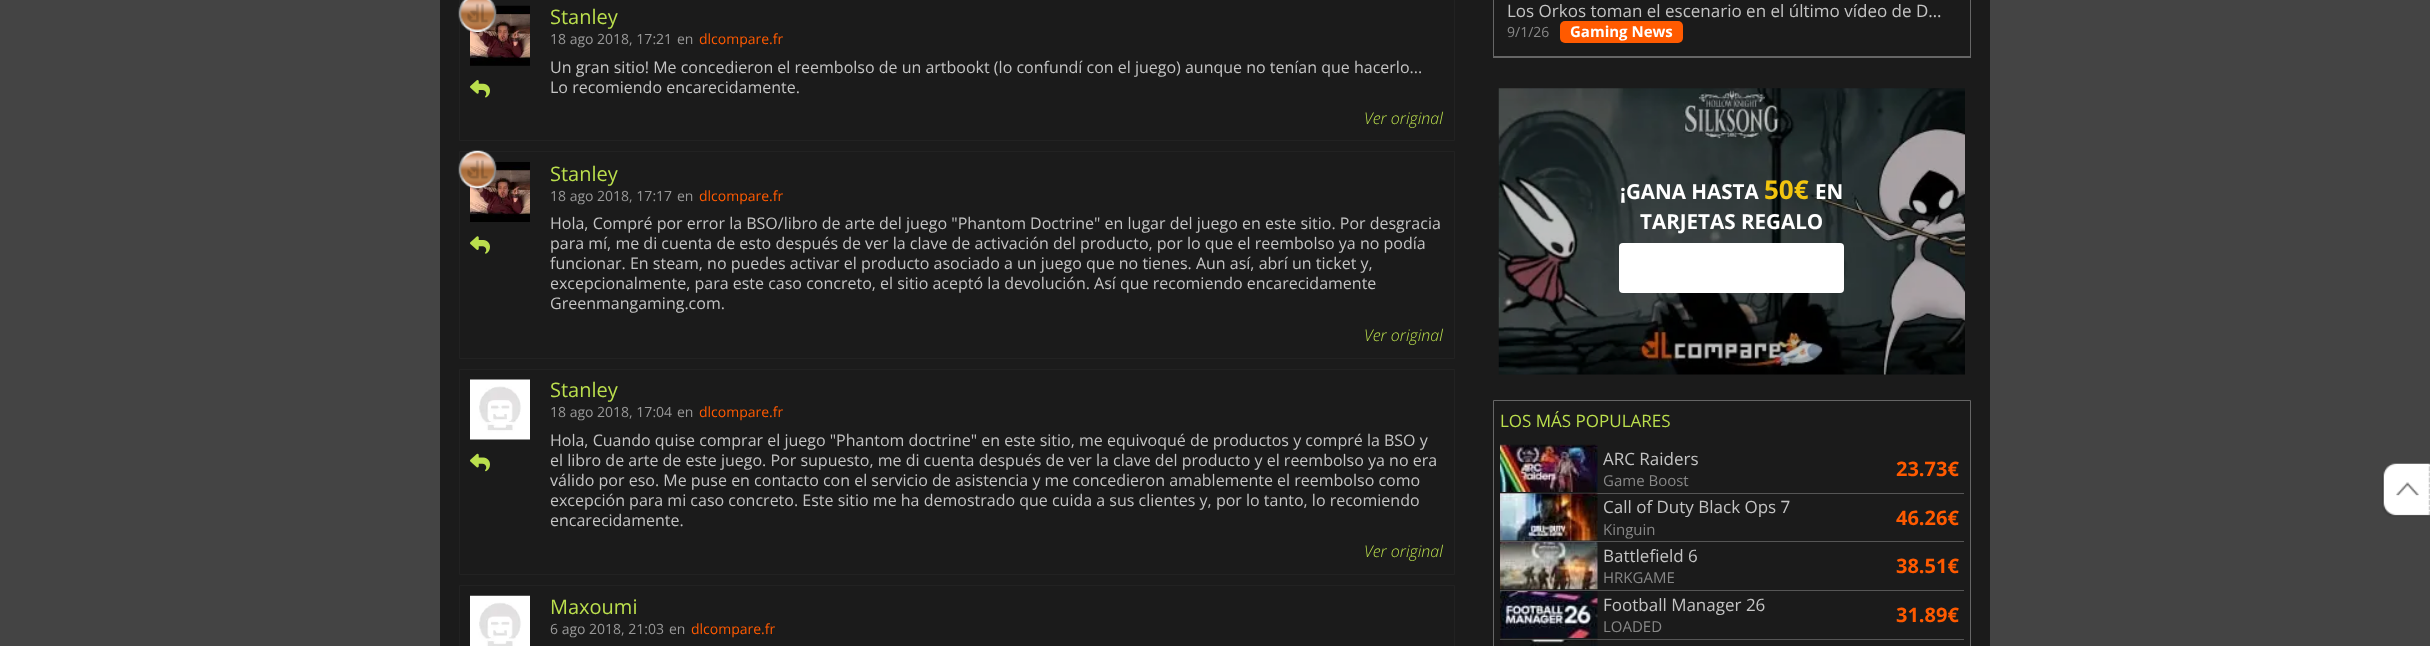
<svg xmlns="http://www.w3.org/2000/svg" width="2430" height="646">
<style>
.a{font:20px Open Sans;fill:#bbdf4d}
.b{font:14px Open Sans;fill:#999}
.c{font:14px Open Sans;fill:#ff5a00}
.d{font:16px Open Sans;fill:#c4c4c4}
.e{font:italic 300 16px Open Sans;fill:#bbdf4d}
.f{font:17px Open Sans;fill:#c4c4c4}
.g{font:14px Open Sans;fill:#888}
.h{font:bold 15px Open Sans;fill:#fff}
.i{font:bold 20.6px Open Sans;fill:#fff}
.j{font:bold 26px Open Sans;fill:#f1c40f}
.k{font:17px Open Sans;fill:#bbdf4d}
.l{font:15px Open Sans;fill:#888}
.m{font:bold 20px Open Sans;fill:#ff5a00}
</style>
<rect width="100%" height="100%" fill="#444"/>
<path fill="#1b1b1b" d="M440 0h1550v646H440z"/>
<path fill="none" stroke="#222" d="M459.5 -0.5h995v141H459.5z"/>
<image href="2.png" x="470" y="5" width="60" height="61"/>
<image href="1.png" x="458" y="0" width="39" height="32"/>
<image href="3.png" x="470" y="80" width="20" height="18"/>
<path fill="none" stroke="#222" d="M459.5 151.5h995v207H459.5z"/>
<image href="5.png" x="470" y="162" width="60" height="60"/>
<image href="4.png" x="458" y="150" width="39" height="39"/>
<image href="6.png" x="470" y="236" width="20" height="18"/>
<path fill="none" stroke="#222" d="M459.5 369.5h995v205H459.5z"/>
<image href="7.png" x="470" y="379" width="60" height="61"/>
<image href="8.png" x="470" y="453" width="20" height="19"/>
<path fill="none" stroke="#222" d="M459.5 585.5h995v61H459.5z"/>
<image href="9.png" x="470" y="595" width="60" height="51"/>
<path fill="#666" d="M1493 0h478v58H1493z"/>
<path fill="#1b1b1b" d="M1494 0h476v56H1494z"/>
<rect fill="#ff5a00" x="1560" y="21" width="123" height="22" rx="5"/>
<image href="10.png" x="1498" y="88" width="467" height="287"/>
<rect fill="#fff" x="1619" y="243" width="225" height="50" rx="4"/>
<path fill="none" stroke="#666" d="M1493.5 400.5h477v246H1493.5z"/>
<path fill="#565656" d="M1500 493h464v1H1500z"/>
<image href="11.png" x="1500" y="444" width="98" height="48"/>
<path fill="#565656" d="M1500 541h464v1H1500z"/>
<image href="12.png" x="1500" y="493" width="98" height="48"/>
<path fill="#565656" d="M1500 590h464v1H1500z"/>
<image href="13.png" x="1500" y="542" width="98" height="48"/>
<path fill="#565656" d="M1500 639h464v1H1500z"/>
<image href="14.png" x="1500" y="590" width="98" height="49"/>
<image href="15.png" x="1500" y="639" width="98" height="7"/>
<image href="16.png" x="2382" y="463" width="48" height="54"/>
<text class="a" x="550" y="24">Stanley</text>
<text class="b" x="550" y="44">18 ago 2018, 17:21</text>
<text class="b" x="677" y="44">en</text>
<text class="c" x="699" y="44">dlcompare.fr</text>
<text class="d" x="550" y="73">Un gran sitio! Me concedieron el reembolso de un artbookt (lo confundí con el juego) aunque no tenían que hacerlo...</text>
<text class="d" x="550" y="93">Lo recomiendo encarecidamente.</text>
<text class="e" x="1364" y="124">Ver original</text>
<text class="a" x="550" y="181">Stanley</text>
<text class="b" x="550" y="201">18 ago 2018, 17:17</text>
<text class="b" x="677" y="201">en</text>
<text class="c" x="699" y="201">dlcompare.fr</text>
<text class="d" x="550" y="229">Hola, Compré por error la BSO/libro de arte del juego "Phantom Doctrine" en lugar del juego en este sitio. Por desgracia</text>
<text class="d" x="550" y="249">para mí, me di cuenta de esto después de ver la clave de activación del producto, por lo que el reembolso ya no podía</text>
<text class="d" x="550" y="269">funcionar. En steam, no puedes activar el producto asociado a un juego que no tienes. Aun así, abrí un ticket y,</text>
<text class="d" x="550" y="289">excepcionalmente, para este caso concreto, el sitio aceptó la devolución. Así que recomiendo encarecidamente</text>
<text class="d" x="550" y="309">Greenmangaming.com.</text>
<text class="e" x="1364" y="341">Ver original</text>
<text class="a" x="550" y="397">Stanley</text>
<text class="b" x="550" y="417">18 ago 2018, 17:04</text>
<text class="b" x="677" y="417">en</text>
<text class="c" x="699" y="417">dlcompare.fr</text>
<text class="d" x="550" y="446">Hola, Cuando quise comprar el juego "Phantom doctrine" en este sitio, me equivoqué de productos y compré la BSO y</text>
<text class="d" x="550" y="466">el libro de arte de este juego. Por supuesto, me di cuenta después de ver la clave del producto y el reembolso ya no era</text>
<text class="d" x="550" y="486">válido por eso. Me puse en contacto con el servicio de asistencia y me concedieron amablemente el reembolso como</text>
<text class="d" x="550" y="506">excepción para mi caso concreto. Este sitio me ha demostrado que cuida a sus clientes y, por lo tanto, lo recomiendo</text>
<text class="d" x="550" y="526">encarecidamente.</text>
<text class="e" x="1364" y="557">Ver original</text>
<text class="a" x="550" y="614">Maxoumi</text>
<text class="b" x="550" y="634">6 ago 2018, 21:03</text>
<text class="b" x="669" y="634">en</text>
<text class="c" x="691" y="634">dlcompare.fr</text>
<text class="f" x="1507" y="17">Los Orkos toman el escenario en el último vídeo de D…</text>
<text class="g" x="1507" y="37">9/1/26</text>
<text class="h" x="1570" y="37">Gaming News</text>
<text class="i" x="1620" y="199">¡GANA HASTA</text>
<text class="j" x="1764" y="199">50€</text>
<text class="i" x="1815" y="199">EN</text>
<text class="i" x="1640" y="229">TARJETAS REGALO</text>
<text class="k" x="1500" y="427">LOS MÁS POPULARES</text>
<text class="f" x="1603" y="465">ARC Raiders</text>
<text class="l" x="1603" y="486">Game Boost</text>
<text class="m" x="1896" y="476">23.73€</text>
<text class="f" x="1603" y="513">Call of Duty Black Ops 7</text>
<text class="l" x="1603" y="535">Kinguin</text>
<text class="m" x="1896" y="525">46.26€</text>
<text class="f" x="1603" y="562">Battlefield 6</text>
<text class="l" x="1603" y="583">HRKGAME</text>
<text class="m" x="1896" y="573">38.51€</text>
<text class="f" x="1603" y="611">Football Manager 26</text>
<text class="l" x="1603" y="632">LOADED</text>
<text class="m" x="1896" y="622">31.89€</text>
</svg>
